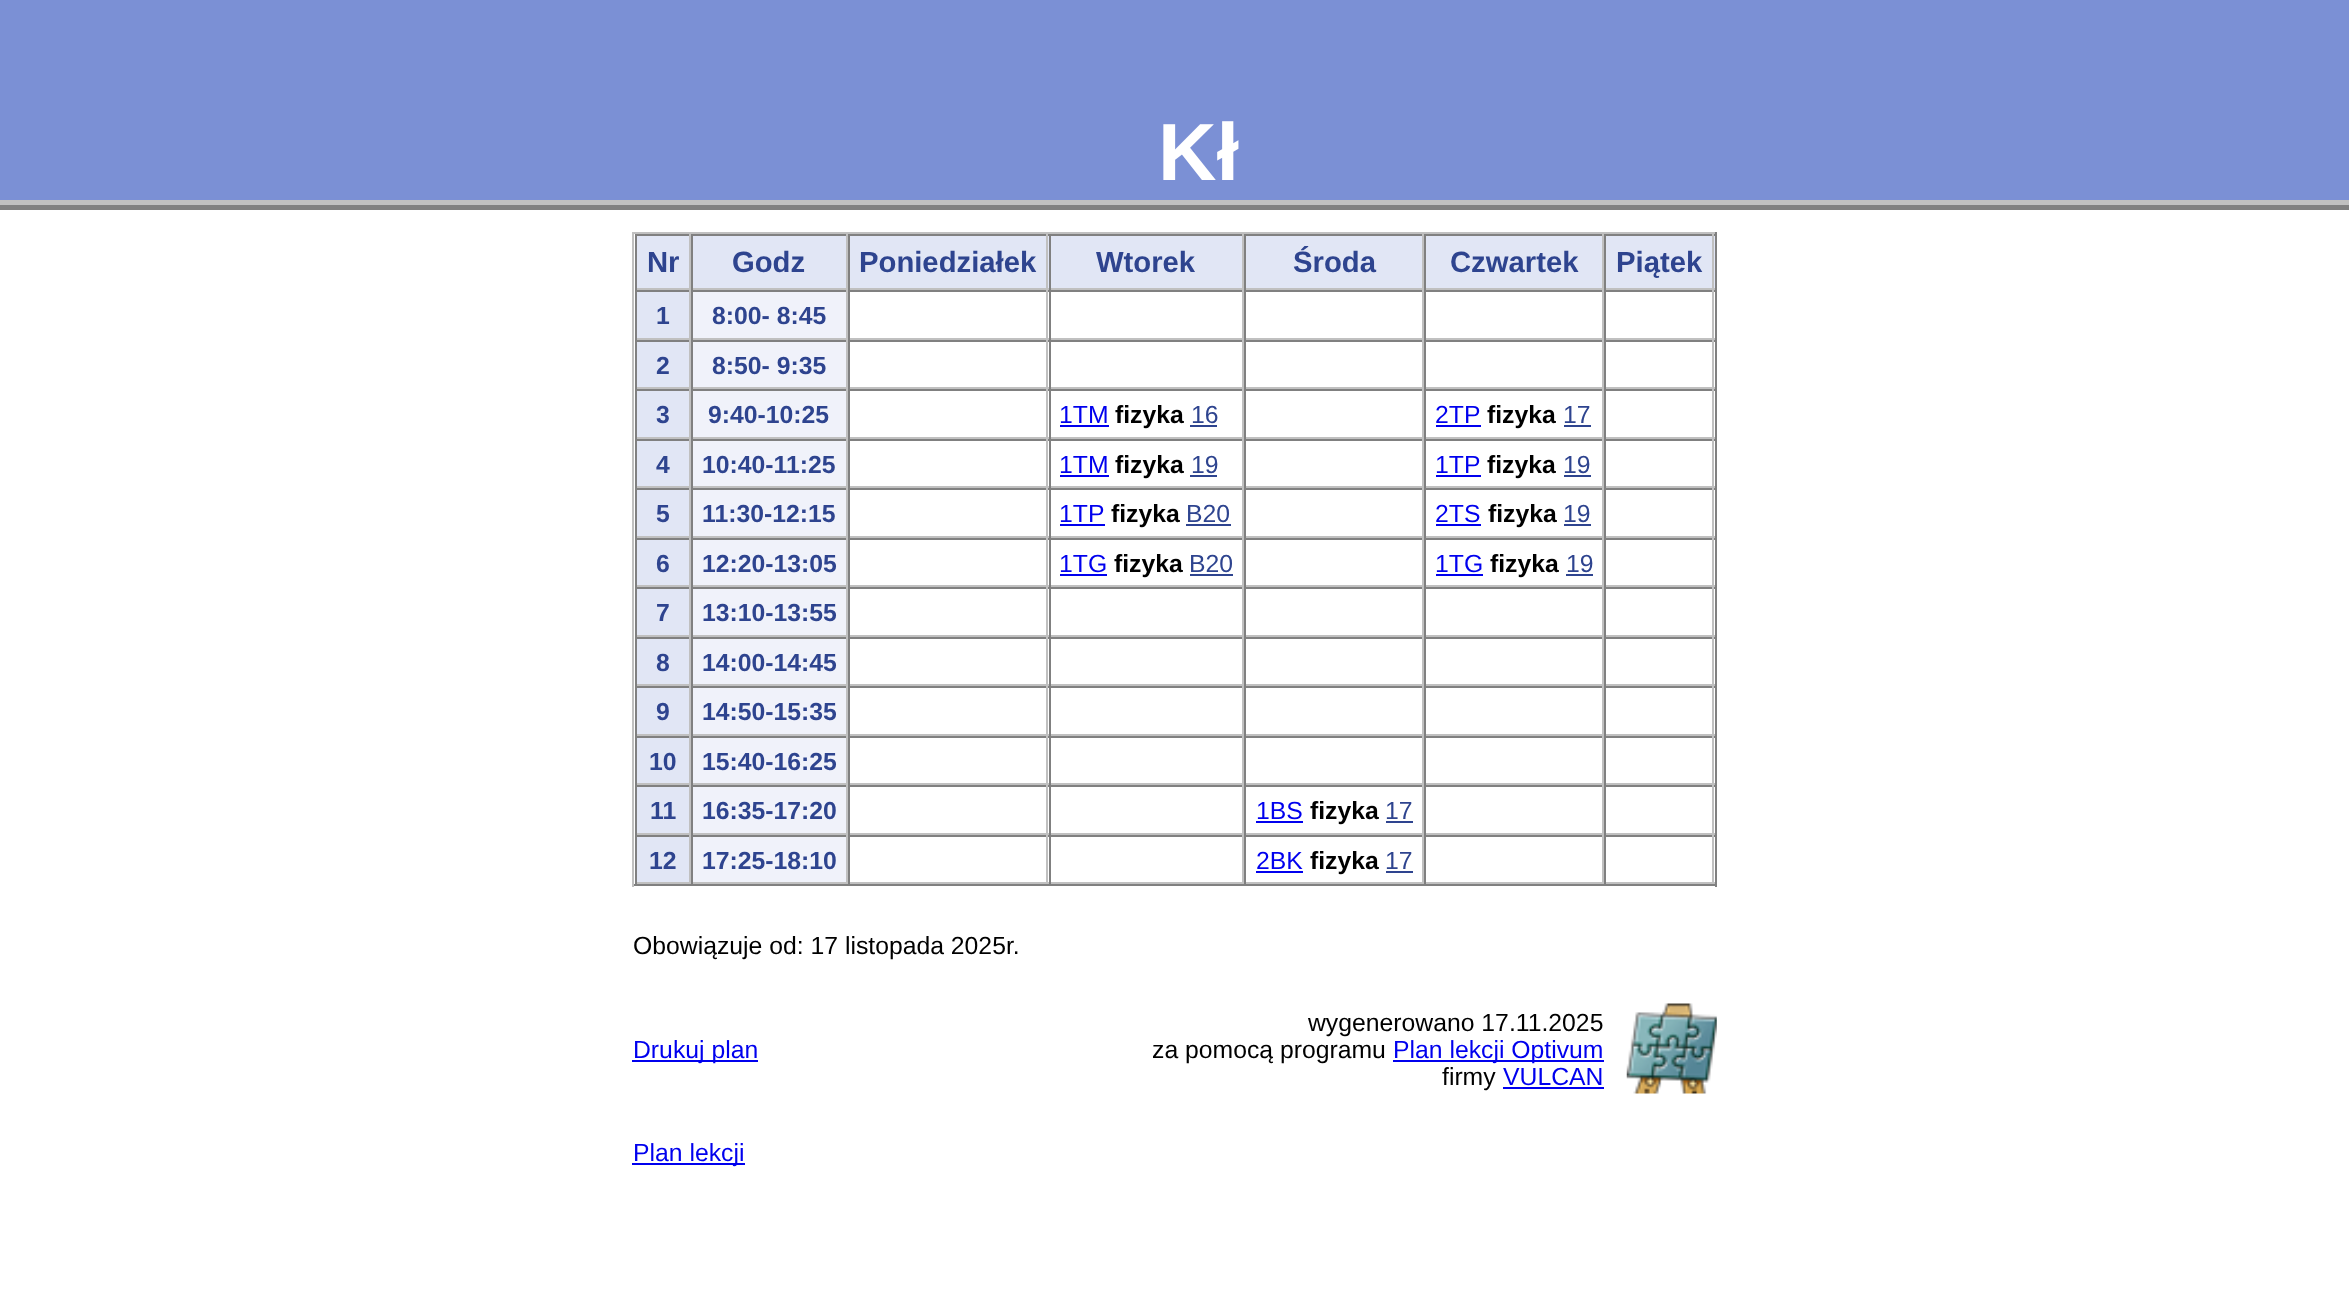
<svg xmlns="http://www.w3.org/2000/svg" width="2349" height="1313">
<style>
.a{font:bold 81px Liberation Sans;fill:#fff}
.b{font:bold 29.25px Liberation Sans;fill:#2e448f}
.c{font:bold 24.75px Liberation Sans;fill:#2e448f}
.d{font:24.75px Liberation Sans;fill:#00e}
.e{font:bold 24.75px Liberation Sans;fill:#000}
.f{font:24.75px Liberation Sans;fill:#2e448f}
.g{font:24.75px Liberation Sans;fill:#000}
</style>
<rect width="100%" height="100%" fill="#fff"/>
<path fill="#7b90d5" d="M0 0h2349v200H0z"/>
<path fill="#808080" d="M0 205h2349v5H0z"/>
<path fill="#c0c0c0" d="M0 200h2349v5H0z"/>
<path fill="#c0c0c0" d="M632 232h1085v2H632z"/>
<path fill="#808080" d="M1715 232h2v655H1715z"/>
<path fill="#808080" d="M632 884h1085v2H632z"/>
<path fill="#c0c0c0" d="M632 232h2v655H632z"/>
<path fill="#e1e6f5" d="M637 236h52v52H637z"/>
<path fill="#808080" d="M635 234h1080v2H635z"/>
<path fill="#c0c0c0" d="M689 234h2v56H689z"/>
<path fill="#c0c0c0" d="M635 288h56v2H635z"/>
<path fill="#808080" d="M635 234h2v56H635z"/>
<path fill="#e1e6f5" d="M693 236h153v52H693z"/>
<path fill="#c0c0c0" d="M846 234h2v56H846z"/>
<path fill="#c0c0c0" d="M691 288h157v2H691z"/>
<path fill="#808080" d="M691 234h2v56H691z"/>
<path fill="#e1e6f5" d="M850 236h199v52H850z"/>
<path fill="#c0c0c0" d="M1046 234h2v56H1046z"/>
<path fill="#c0c0c0" d="M848 288h201v2H848z"/>
<path fill="#808080" d="M848 234h2v56H848z"/>
<path fill="#e1e6f5" d="M1051 236h191v52H1051z"/>
<path fill="#c0c0c0" d="M1242 234h2v56H1242z"/>
<path fill="#c0c0c0" d="M1049 288h195v2H1049z"/>
<path fill="#808080" d="M1049 234h2v56H1049z"/>
<path fill="#e1e6f5" d="M1246 236h176v52H1246z"/>
<path fill="#c0c0c0" d="M1422 234h2v56H1422z"/>
<path fill="#c0c0c0" d="M1244 288h180v2H1244z"/>
<path fill="#808080" d="M1244 234h2v56H1244z"/>
<path fill="#e1e6f5" d="M1426 236h176v52H1426z"/>
<path fill="#c0c0c0" d="M1602 234h2v56H1602z"/>
<path fill="#c0c0c0" d="M1424 288h180v2H1424z"/>
<path fill="#808080" d="M1424 234h2v56H1424z"/>
<path fill="#e1e6f5" d="M1606 236h109v52H1606z"/>
<path fill="#c0c0c0" d="M1712 234h2v56H1712z"/>
<path fill="#c0c0c0" d="M1604 288h111v2H1604z"/>
<path fill="#808080" d="M1604 234h2v56H1604z"/>
<path fill="#e1e6f5" d="M637 292h52v46H637z"/>
<path fill="#808080" d="M635 290h1080v2H635z"/>
<path fill="#c0c0c0" d="M689 290h2v50H689z"/>
<path fill="#c0c0c0" d="M635 338h56v2H635z"/>
<path fill="#808080" d="M635 290h2v50H635z"/>
<path fill="#f0f2fa" d="M693 292h153v46H693z"/>
<path fill="#c0c0c0" d="M846 290h2v50H846z"/>
<path fill="#c0c0c0" d="M691 338h157v2H691z"/>
<path fill="#808080" d="M691 290h2v50H691z"/>
<path fill="#c0c0c0" d="M1046 290h2v50H1046z"/>
<path fill="#c0c0c0" d="M848 338h201v2H848z"/>
<path fill="#808080" d="M848 290h2v50H848z"/>
<path fill="#c0c0c0" d="M1242 290h2v50H1242z"/>
<path fill="#c0c0c0" d="M1049 338h195v2H1049z"/>
<path fill="#808080" d="M1049 290h2v50H1049z"/>
<path fill="#c0c0c0" d="M1422 290h2v50H1422z"/>
<path fill="#c0c0c0" d="M1244 338h180v2H1244z"/>
<path fill="#808080" d="M1244 290h2v50H1244z"/>
<path fill="#c0c0c0" d="M1602 290h2v50H1602z"/>
<path fill="#c0c0c0" d="M1424 338h180v2H1424z"/>
<path fill="#808080" d="M1424 290h2v50H1424z"/>
<path fill="#c0c0c0" d="M1712 290h2v50H1712z"/>
<path fill="#c0c0c0" d="M1604 338h111v2H1604z"/>
<path fill="#808080" d="M1604 290h2v50H1604z"/>
<path fill="#e1e6f5" d="M637 342h52v45H637z"/>
<path fill="#808080" d="M635 340h1080v2H635z"/>
<path fill="#c0c0c0" d="M689 340h2v49H689z"/>
<path fill="#c0c0c0" d="M635 387h56v2H635z"/>
<path fill="#808080" d="M635 340h2v49H635z"/>
<path fill="#f0f2fa" d="M693 342h153v45H693z"/>
<path fill="#c0c0c0" d="M846 340h2v49H846z"/>
<path fill="#c0c0c0" d="M691 387h157v2H691z"/>
<path fill="#808080" d="M691 340h2v49H691z"/>
<path fill="#c0c0c0" d="M1046 340h2v49H1046z"/>
<path fill="#c0c0c0" d="M848 387h201v2H848z"/>
<path fill="#808080" d="M848 340h2v49H848z"/>
<path fill="#c0c0c0" d="M1242 340h2v49H1242z"/>
<path fill="#c0c0c0" d="M1049 387h195v2H1049z"/>
<path fill="#808080" d="M1049 340h2v49H1049z"/>
<path fill="#c0c0c0" d="M1422 340h2v49H1422z"/>
<path fill="#c0c0c0" d="M1244 387h180v2H1244z"/>
<path fill="#808080" d="M1244 340h2v49H1244z"/>
<path fill="#c0c0c0" d="M1602 340h2v49H1602z"/>
<path fill="#c0c0c0" d="M1424 387h180v2H1424z"/>
<path fill="#808080" d="M1424 340h2v49H1424z"/>
<path fill="#c0c0c0" d="M1712 340h2v49H1712z"/>
<path fill="#c0c0c0" d="M1604 387h111v2H1604z"/>
<path fill="#808080" d="M1604 340h2v49H1604z"/>
<path fill="#e1e6f5" d="M637 391h52v46H637z"/>
<path fill="#808080" d="M635 389h1080v2H635z"/>
<path fill="#c0c0c0" d="M689 389h2v50H689z"/>
<path fill="#c0c0c0" d="M635 437h56v2H635z"/>
<path fill="#808080" d="M635 389h2v50H635z"/>
<path fill="#f0f2fa" d="M693 391h153v46H693z"/>
<path fill="#c0c0c0" d="M846 389h2v50H846z"/>
<path fill="#c0c0c0" d="M691 437h157v2H691z"/>
<path fill="#808080" d="M691 389h2v50H691z"/>
<path fill="#c0c0c0" d="M1046 389h2v50H1046z"/>
<path fill="#c0c0c0" d="M848 437h201v2H848z"/>
<path fill="#808080" d="M848 389h2v50H848z"/>
<path fill="#c0c0c0" d="M1242 389h2v50H1242z"/>
<path fill="#c0c0c0" d="M1049 437h195v2H1049z"/>
<path fill="#808080" d="M1049 389h2v50H1049z"/>
<path fill="#00e" d="M1060 425h49v2H1060z"/>
<path fill="#2e448f" d="M1190 425h27v2H1190z"/>
<path fill="#c0c0c0" d="M1422 389h2v50H1422z"/>
<path fill="#c0c0c0" d="M1244 437h180v2H1244z"/>
<path fill="#808080" d="M1244 389h2v50H1244z"/>
<path fill="#c0c0c0" d="M1602 389h2v50H1602z"/>
<path fill="#c0c0c0" d="M1424 437h180v2H1424z"/>
<path fill="#808080" d="M1424 389h2v50H1424z"/>
<path fill="#00e" d="M1436 425h45v2H1436z"/>
<path fill="#2e448f" d="M1564 425h27v2H1564z"/>
<path fill="#c0c0c0" d="M1712 389h2v50H1712z"/>
<path fill="#c0c0c0" d="M1604 437h111v2H1604z"/>
<path fill="#808080" d="M1604 389h2v50H1604z"/>
<path fill="#e1e6f5" d="M637 441h52v45H637z"/>
<path fill="#808080" d="M635 439h1080v2H635z"/>
<path fill="#c0c0c0" d="M689 439h2v49H689z"/>
<path fill="#c0c0c0" d="M635 486h56v2H635z"/>
<path fill="#808080" d="M635 439h2v49H635z"/>
<path fill="#f0f2fa" d="M693 441h153v45H693z"/>
<path fill="#c0c0c0" d="M846 439h2v49H846z"/>
<path fill="#c0c0c0" d="M691 486h157v2H691z"/>
<path fill="#808080" d="M691 439h2v49H691z"/>
<path fill="#c0c0c0" d="M1046 439h2v49H1046z"/>
<path fill="#c0c0c0" d="M848 486h201v2H848z"/>
<path fill="#808080" d="M848 439h2v49H848z"/>
<path fill="#c0c0c0" d="M1242 439h2v49H1242z"/>
<path fill="#c0c0c0" d="M1049 486h195v2H1049z"/>
<path fill="#808080" d="M1049 439h2v49H1049z"/>
<path fill="#00e" d="M1060 475h49v2H1060z"/>
<path fill="#2e448f" d="M1190 475h27v2H1190z"/>
<path fill="#c0c0c0" d="M1422 439h2v49H1422z"/>
<path fill="#c0c0c0" d="M1244 486h180v2H1244z"/>
<path fill="#808080" d="M1244 439h2v49H1244z"/>
<path fill="#c0c0c0" d="M1602 439h2v49H1602z"/>
<path fill="#c0c0c0" d="M1424 486h180v2H1424z"/>
<path fill="#808080" d="M1424 439h2v49H1424z"/>
<path fill="#00e" d="M1436 475h45v2H1436z"/>
<path fill="#2e448f" d="M1564 475h27v2H1564z"/>
<path fill="#c0c0c0" d="M1712 439h2v49H1712z"/>
<path fill="#c0c0c0" d="M1604 486h111v2H1604z"/>
<path fill="#808080" d="M1604 439h2v49H1604z"/>
<path fill="#e1e6f5" d="M637 490h52v46H637z"/>
<path fill="#808080" d="M635 488h1080v2H635z"/>
<path fill="#c0c0c0" d="M689 488h2v50H689z"/>
<path fill="#c0c0c0" d="M635 536h56v2H635z"/>
<path fill="#808080" d="M635 488h2v50H635z"/>
<path fill="#f0f2fa" d="M693 490h153v46H693z"/>
<path fill="#c0c0c0" d="M846 488h2v50H846z"/>
<path fill="#c0c0c0" d="M691 536h157v2H691z"/>
<path fill="#808080" d="M691 488h2v50H691z"/>
<path fill="#c0c0c0" d="M1046 488h2v50H1046z"/>
<path fill="#c0c0c0" d="M848 536h201v2H848z"/>
<path fill="#808080" d="M848 488h2v50H848z"/>
<path fill="#c0c0c0" d="M1242 488h2v50H1242z"/>
<path fill="#c0c0c0" d="M1049 536h195v2H1049z"/>
<path fill="#808080" d="M1049 488h2v50H1049z"/>
<path fill="#00e" d="M1060 524h45v2H1060z"/>
<path fill="#2e448f" d="M1186 524h45v2H1186z"/>
<path fill="#c0c0c0" d="M1422 488h2v50H1422z"/>
<path fill="#c0c0c0" d="M1244 536h180v2H1244z"/>
<path fill="#808080" d="M1244 488h2v50H1244z"/>
<path fill="#c0c0c0" d="M1602 488h2v50H1602z"/>
<path fill="#c0c0c0" d="M1424 536h180v2H1424z"/>
<path fill="#808080" d="M1424 488h2v50H1424z"/>
<path fill="#00e" d="M1436 524h45v2H1436z"/>
<path fill="#2e448f" d="M1564 524h27v2H1564z"/>
<path fill="#c0c0c0" d="M1712 488h2v50H1712z"/>
<path fill="#c0c0c0" d="M1604 536h111v2H1604z"/>
<path fill="#808080" d="M1604 488h2v50H1604z"/>
<path fill="#e1e6f5" d="M637 540h52v45H637z"/>
<path fill="#808080" d="M635 538h1080v2H635z"/>
<path fill="#c0c0c0" d="M689 538h2v49H689z"/>
<path fill="#c0c0c0" d="M635 585h56v2H635z"/>
<path fill="#808080" d="M635 538h2v49H635z"/>
<path fill="#f0f2fa" d="M693 540h153v45H693z"/>
<path fill="#c0c0c0" d="M846 538h2v49H846z"/>
<path fill="#c0c0c0" d="M691 585h157v2H691z"/>
<path fill="#808080" d="M691 538h2v49H691z"/>
<path fill="#c0c0c0" d="M1046 538h2v49H1046z"/>
<path fill="#c0c0c0" d="M848 585h201v2H848z"/>
<path fill="#808080" d="M848 538h2v49H848z"/>
<path fill="#c0c0c0" d="M1242 538h2v49H1242z"/>
<path fill="#c0c0c0" d="M1049 585h195v2H1049z"/>
<path fill="#808080" d="M1049 538h2v49H1049z"/>
<path fill="#00e" d="M1060 574h47v2H1060z"/>
<path fill="#2e448f" d="M1190 574h43v2H1190z"/>
<path fill="#c0c0c0" d="M1422 538h2v49H1422z"/>
<path fill="#c0c0c0" d="M1244 585h180v2H1244z"/>
<path fill="#808080" d="M1244 538h2v49H1244z"/>
<path fill="#c0c0c0" d="M1602 538h2v49H1602z"/>
<path fill="#c0c0c0" d="M1424 585h180v2H1424z"/>
<path fill="#808080" d="M1424 538h2v49H1424z"/>
<path fill="#00e" d="M1436 574h47v2H1436z"/>
<path fill="#2e448f" d="M1566 574h27v2H1566z"/>
<path fill="#c0c0c0" d="M1712 538h2v49H1712z"/>
<path fill="#c0c0c0" d="M1604 585h111v2H1604z"/>
<path fill="#808080" d="M1604 538h2v49H1604z"/>
<path fill="#e1e6f5" d="M637 589h52v46H637z"/>
<path fill="#808080" d="M635 587h1080v2H635z"/>
<path fill="#c0c0c0" d="M689 587h2v50H689z"/>
<path fill="#c0c0c0" d="M635 635h56v2H635z"/>
<path fill="#808080" d="M635 587h2v50H635z"/>
<path fill="#f0f2fa" d="M693 589h153v46H693z"/>
<path fill="#c0c0c0" d="M846 587h2v50H846z"/>
<path fill="#c0c0c0" d="M691 635h157v2H691z"/>
<path fill="#808080" d="M691 587h2v50H691z"/>
<path fill="#c0c0c0" d="M1046 587h2v50H1046z"/>
<path fill="#c0c0c0" d="M848 635h201v2H848z"/>
<path fill="#808080" d="M848 587h2v50H848z"/>
<path fill="#c0c0c0" d="M1242 587h2v50H1242z"/>
<path fill="#c0c0c0" d="M1049 635h195v2H1049z"/>
<path fill="#808080" d="M1049 587h2v50H1049z"/>
<path fill="#c0c0c0" d="M1422 587h2v50H1422z"/>
<path fill="#c0c0c0" d="M1244 635h180v2H1244z"/>
<path fill="#808080" d="M1244 587h2v50H1244z"/>
<path fill="#c0c0c0" d="M1602 587h2v50H1602z"/>
<path fill="#c0c0c0" d="M1424 635h180v2H1424z"/>
<path fill="#808080" d="M1424 587h2v50H1424z"/>
<path fill="#c0c0c0" d="M1712 587h2v50H1712z"/>
<path fill="#c0c0c0" d="M1604 635h111v2H1604z"/>
<path fill="#808080" d="M1604 587h2v50H1604z"/>
<path fill="#e1e6f5" d="M637 639h52v45H637z"/>
<path fill="#808080" d="M635 637h1080v2H635z"/>
<path fill="#c0c0c0" d="M689 637h2v49H689z"/>
<path fill="#c0c0c0" d="M635 684h56v2H635z"/>
<path fill="#808080" d="M635 637h2v49H635z"/>
<path fill="#f0f2fa" d="M693 639h153v45H693z"/>
<path fill="#c0c0c0" d="M846 637h2v49H846z"/>
<path fill="#c0c0c0" d="M691 684h157v2H691z"/>
<path fill="#808080" d="M691 637h2v49H691z"/>
<path fill="#c0c0c0" d="M1046 637h2v49H1046z"/>
<path fill="#c0c0c0" d="M848 684h201v2H848z"/>
<path fill="#808080" d="M848 637h2v49H848z"/>
<path fill="#c0c0c0" d="M1242 637h2v49H1242z"/>
<path fill="#c0c0c0" d="M1049 684h195v2H1049z"/>
<path fill="#808080" d="M1049 637h2v49H1049z"/>
<path fill="#c0c0c0" d="M1422 637h2v49H1422z"/>
<path fill="#c0c0c0" d="M1244 684h180v2H1244z"/>
<path fill="#808080" d="M1244 637h2v49H1244z"/>
<path fill="#c0c0c0" d="M1602 637h2v49H1602z"/>
<path fill="#c0c0c0" d="M1424 684h180v2H1424z"/>
<path fill="#808080" d="M1424 637h2v49H1424z"/>
<path fill="#c0c0c0" d="M1712 637h2v49H1712z"/>
<path fill="#c0c0c0" d="M1604 684h111v2H1604z"/>
<path fill="#808080" d="M1604 637h2v49H1604z"/>
<path fill="#e1e6f5" d="M637 688h52v46H637z"/>
<path fill="#808080" d="M635 686h1080v2H635z"/>
<path fill="#c0c0c0" d="M689 686h2v50H689z"/>
<path fill="#c0c0c0" d="M635 734h56v2H635z"/>
<path fill="#808080" d="M635 686h2v50H635z"/>
<path fill="#f0f2fa" d="M693 688h153v46H693z"/>
<path fill="#c0c0c0" d="M846 686h2v50H846z"/>
<path fill="#c0c0c0" d="M691 734h157v2H691z"/>
<path fill="#808080" d="M691 686h2v50H691z"/>
<path fill="#c0c0c0" d="M1046 686h2v50H1046z"/>
<path fill="#c0c0c0" d="M848 734h201v2H848z"/>
<path fill="#808080" d="M848 686h2v50H848z"/>
<path fill="#c0c0c0" d="M1242 686h2v50H1242z"/>
<path fill="#c0c0c0" d="M1049 734h195v2H1049z"/>
<path fill="#808080" d="M1049 686h2v50H1049z"/>
<path fill="#c0c0c0" d="M1422 686h2v50H1422z"/>
<path fill="#c0c0c0" d="M1244 734h180v2H1244z"/>
<path fill="#808080" d="M1244 686h2v50H1244z"/>
<path fill="#c0c0c0" d="M1602 686h2v50H1602z"/>
<path fill="#c0c0c0" d="M1424 734h180v2H1424z"/>
<path fill="#808080" d="M1424 686h2v50H1424z"/>
<path fill="#c0c0c0" d="M1712 686h2v50H1712z"/>
<path fill="#c0c0c0" d="M1604 734h111v2H1604z"/>
<path fill="#808080" d="M1604 686h2v50H1604z"/>
<path fill="#e1e6f5" d="M637 738h52v45H637z"/>
<path fill="#808080" d="M635 736h1080v2H635z"/>
<path fill="#c0c0c0" d="M689 736h2v49H689z"/>
<path fill="#c0c0c0" d="M635 783h56v2H635z"/>
<path fill="#808080" d="M635 736h2v49H635z"/>
<path fill="#f0f2fa" d="M693 738h153v45H693z"/>
<path fill="#c0c0c0" d="M846 736h2v49H846z"/>
<path fill="#c0c0c0" d="M691 783h157v2H691z"/>
<path fill="#808080" d="M691 736h2v49H691z"/>
<path fill="#c0c0c0" d="M1046 736h2v49H1046z"/>
<path fill="#c0c0c0" d="M848 783h201v2H848z"/>
<path fill="#808080" d="M848 736h2v49H848z"/>
<path fill="#c0c0c0" d="M1242 736h2v49H1242z"/>
<path fill="#c0c0c0" d="M1049 783h195v2H1049z"/>
<path fill="#808080" d="M1049 736h2v49H1049z"/>
<path fill="#c0c0c0" d="M1422 736h2v49H1422z"/>
<path fill="#c0c0c0" d="M1244 783h180v2H1244z"/>
<path fill="#808080" d="M1244 736h2v49H1244z"/>
<path fill="#c0c0c0" d="M1602 736h2v49H1602z"/>
<path fill="#c0c0c0" d="M1424 783h180v2H1424z"/>
<path fill="#808080" d="M1424 736h2v49H1424z"/>
<path fill="#c0c0c0" d="M1712 736h2v49H1712z"/>
<path fill="#c0c0c0" d="M1604 783h111v2H1604z"/>
<path fill="#808080" d="M1604 736h2v49H1604z"/>
<path fill="#e1e6f5" d="M637 787h52v46H637z"/>
<path fill="#808080" d="M635 785h1080v2H635z"/>
<path fill="#c0c0c0" d="M689 785h2v50H689z"/>
<path fill="#c0c0c0" d="M635 833h56v2H635z"/>
<path fill="#808080" d="M635 785h2v50H635z"/>
<path fill="#f0f2fa" d="M693 787h153v46H693z"/>
<path fill="#c0c0c0" d="M846 785h2v50H846z"/>
<path fill="#c0c0c0" d="M691 833h157v2H691z"/>
<path fill="#808080" d="M691 785h2v50H691z"/>
<path fill="#c0c0c0" d="M1046 785h2v50H1046z"/>
<path fill="#c0c0c0" d="M848 833h201v2H848z"/>
<path fill="#808080" d="M848 785h2v50H848z"/>
<path fill="#c0c0c0" d="M1242 785h2v50H1242z"/>
<path fill="#c0c0c0" d="M1049 833h195v2H1049z"/>
<path fill="#808080" d="M1049 785h2v50H1049z"/>
<path fill="#c0c0c0" d="M1422 785h2v50H1422z"/>
<path fill="#c0c0c0" d="M1244 833h180v2H1244z"/>
<path fill="#808080" d="M1244 785h2v50H1244z"/>
<path fill="#00e" d="M1256 821h47v2H1256z"/>
<path fill="#2e448f" d="M1386 821h27v2H1386z"/>
<path fill="#c0c0c0" d="M1602 785h2v50H1602z"/>
<path fill="#c0c0c0" d="M1424 833h180v2H1424z"/>
<path fill="#808080" d="M1424 785h2v50H1424z"/>
<path fill="#c0c0c0" d="M1712 785h2v50H1712z"/>
<path fill="#c0c0c0" d="M1604 833h111v2H1604z"/>
<path fill="#808080" d="M1604 785h2v50H1604z"/>
<path fill="#e1e6f5" d="M637 837h52v45H637z"/>
<path fill="#808080" d="M635 835h1080v2H635z"/>
<path fill="#c0c0c0" d="M689 835h2v49H689z"/>
<path fill="#c0c0c0" d="M635 882h56v2H635z"/>
<path fill="#808080" d="M635 835h2v49H635z"/>
<path fill="#f0f2fa" d="M693 837h153v45H693z"/>
<path fill="#c0c0c0" d="M846 835h2v49H846z"/>
<path fill="#c0c0c0" d="M691 882h157v2H691z"/>
<path fill="#808080" d="M691 835h2v49H691z"/>
<path fill="#c0c0c0" d="M1046 835h2v49H1046z"/>
<path fill="#c0c0c0" d="M848 882h201v2H848z"/>
<path fill="#808080" d="M848 835h2v49H848z"/>
<path fill="#c0c0c0" d="M1242 835h2v49H1242z"/>
<path fill="#c0c0c0" d="M1049 882h195v2H1049z"/>
<path fill="#808080" d="M1049 835h2v49H1049z"/>
<path fill="#c0c0c0" d="M1422 835h2v49H1422z"/>
<path fill="#c0c0c0" d="M1244 882h180v2H1244z"/>
<path fill="#808080" d="M1244 835h2v49H1244z"/>
<path fill="#00e" d="M1256 871h47v2H1256z"/>
<path fill="#2e448f" d="M1386 871h27v2H1386z"/>
<path fill="#c0c0c0" d="M1602 835h2v49H1602z"/>
<path fill="#c0c0c0" d="M1424 882h180v2H1424z"/>
<path fill="#808080" d="M1424 835h2v49H1424z"/>
<path fill="#c0c0c0" d="M1712 835h2v49H1712z"/>
<path fill="#c0c0c0" d="M1604 882h111v2H1604z"/>
<path fill="#808080" d="M1604 835h2v49H1604z"/>
<path fill="#00e" d="M632 1060h126v2H632z"/>
<path fill="#00e" d="M1393 1060h211v2H1393z"/>
<path fill="#00e" d="M1503 1087h101v2H1503z"/>
<image href="1.png" x="1626" y="1003" width="91" height="91"/>
<path fill="#00e" d="M632 1163h113v2H632z"/>
<text class="a" x="1158" y="180">Kł</text>
<text class="b" x="647" y="272">Nr</text>
<text class="b" x="732" y="272">Godz</text>
<text class="b" x="859" y="272">Poniedziałek</text>
<text class="b" x="1096" y="272">Wtorek</text>
<text class="b" x="1293" y="272">Środa</text>
<text class="b" x="1450" y="272">Czwartek</text>
<text class="b" x="1616" y="272">Piątek</text>
<text class="c" x="656" y="324">1</text>
<text class="c" x="712" y="324">8:00- 8:45</text>
<text class="c" x="656" y="374">2</text>
<text class="c" x="712" y="374">8:50- 9:35</text>
<text class="c" x="656" y="423">3</text>
<text class="c" x="708" y="423">9:40-10:25</text>
<text class="d" x="1059" y="423">1TM</text>
<text class="e" x="1115" y="423">fizyka</text>
<text class="f" x="1191" y="423">16</text>
<text class="d" x="1435" y="423">2TP</text>
<text class="e" x="1487" y="423">fizyka</text>
<text class="f" x="1563" y="423">17</text>
<text class="c" x="656" y="473">4</text>
<text class="c" x="702" y="473">10:40-11:25</text>
<text class="d" x="1059" y="473">1TM</text>
<text class="e" x="1115" y="473">fizyka</text>
<text class="f" x="1191" y="473">19</text>
<text class="d" x="1435" y="473">1TP</text>
<text class="e" x="1487" y="473">fizyka</text>
<text class="f" x="1563" y="473">19</text>
<text class="c" x="656" y="522">5</text>
<text class="c" x="702" y="522">11:30-12:15</text>
<text class="d" x="1059" y="522">1TP</text>
<text class="e" x="1111" y="522">fizyka</text>
<text class="f" x="1186" y="522">B20</text>
<text class="d" x="1435" y="522">2TS</text>
<text class="e" x="1488" y="522">fizyka</text>
<text class="f" x="1563" y="522">19</text>
<text class="c" x="656" y="572">6</text>
<text class="c" x="702" y="572">12:20-13:05</text>
<text class="d" x="1059" y="572">1TG</text>
<text class="e" x="1114" y="572">fizyka</text>
<text class="f" x="1189" y="572">B20</text>
<text class="d" x="1435" y="572">1TG</text>
<text class="e" x="1490" y="572">fizyka</text>
<text class="f" x="1566" y="572">19</text>
<text class="c" x="656" y="621">7</text>
<text class="c" x="702" y="621">13:10-13:55</text>
<text class="c" x="656" y="671">8</text>
<text class="c" x="702" y="671">14:00-14:45</text>
<text class="c" x="656" y="720">9</text>
<text class="c" x="702" y="720">14:50-15:35</text>
<text class="c" x="649" y="770">10</text>
<text class="c" x="702" y="770">15:40-16:25</text>
<text class="c" x="650" y="819">11</text>
<text class="c" x="702" y="819">16:35-17:20</text>
<text class="d" x="1256" y="819">1BS</text>
<text class="e" x="1310" y="819">fizyka</text>
<text class="f" x="1385" y="819">17</text>
<text class="c" x="649" y="869">12</text>
<text class="c" x="702" y="869">17:25-18:10</text>
<text class="d" x="1256" y="869">2BK</text>
<text class="e" x="1310" y="869">fizyka</text>
<text class="f" x="1385" y="869">17</text>
<text class="g" x="633" y="954">Obowiązuje od: 17 listopada 2025r.</text>
<text class="d" x="633" y="1058">Drukuj plan</text>
<text class="g" x="1308" y="1031">wygenerowano 17.11.2025</text>
<text class="g" x="1152" y="1058">za pomocą programu</text>
<text class="d" x="1393" y="1058">Plan lekcji Optivum</text>
<text class="g" x="1442" y="1085">firmy</text>
<text class="d" x="1503" y="1085">VULCAN</text>
<text class="d" x="633" y="1161">Plan lekcji</text>
</svg>
